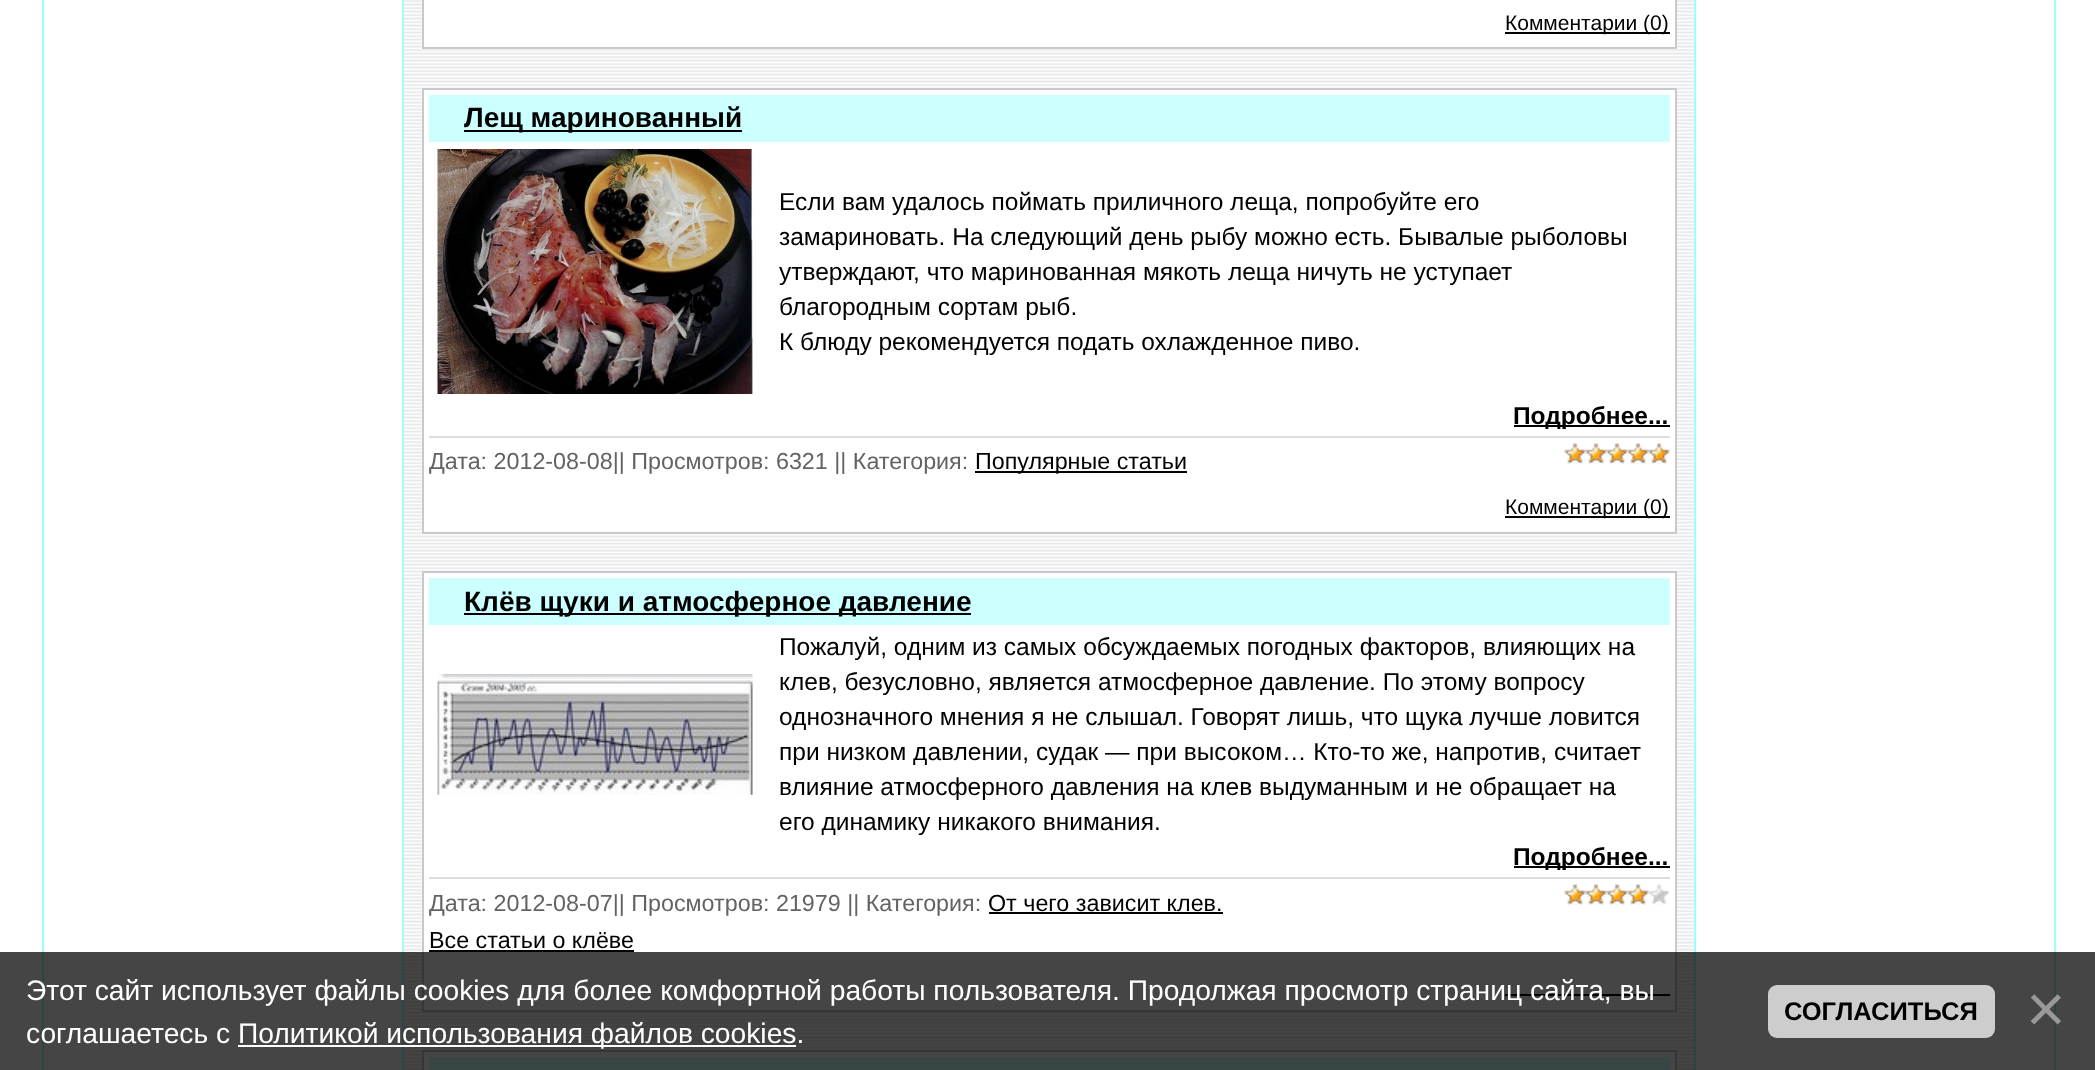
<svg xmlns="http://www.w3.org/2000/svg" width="2095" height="1070">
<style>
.a{font:21px Liberation Sans;fill:#000}
.b{font:bold 28px Liberation Sans;fill:#000}
.c{font:24.5px Liberation Sans;fill:#000}
.d{font:bold 24.5px Liberation Sans;fill:#000}
.e{font:23.3px Liberation Sans;fill:#636363}
.f{font:23.3px Liberation Sans;fill:#000}
.g{font:28.23px Liberation Sans;fill:#fff}
.h{font:bold 25.5px Liberation Sans;fill:#000}
.i{font:68px Liberation Sans;fill:#999}
</style>
<rect width="100%" height="100%" fill="#fff"/>
<image href="1.png" x="404" y="0" width="1290" height="1070"/>
<path fill="none" stroke="#9ff" stroke-width="2" d="M43 -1h360v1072H43z"/>
<path fill="#fff" stroke="#c7c9ce" stroke-width="2" d="M423 -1h1253v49H423z"/>
<path fill="#000" d="M1505 32h165v2H1505z"/>
<path fill="#fff" d="M424 91h1251v440H424z"/>
<path fill="none" stroke="#c7c9ce" stroke-width="2" d="M423 89h1253v444H423z"/>
<path fill="#cff" d="M429 95h1241v47H429z"/>
<path fill="#000" d="M464 130h278v2H464z"/>
<image href="2.png" x="437" y="149" width="316" height="245"/>
<path fill="#000" d="M1514 425h156v2H1514z"/>
<path fill="#ddd" d="M429 436h1241v2H429z"/>
<path fill="#000" d="M975 471h212v2H975z"/>
<image href="3.png" x="1564" y="443" width="106" height="21"/>
<image href="4.png" x="1564" y="443" width="106" height="21"/>
<path fill="#000" d="M1505 516h165v2H1505z"/>
<path fill="#fff" d="M424 574h1251v436H424z"/>
<path fill="none" stroke="#c7c9ce" stroke-width="2" d="M423 572h1253v439H423z"/>
<path fill="#cff" d="M429 578h1241v47H429z"/>
<path fill="#000" d="M464 613h507v2H464z"/>
<image href="5.png" x="437" y="674" width="316" height="121"/>
<path fill="#000" d="M1514 866h156v2H1514z"/>
<path fill="#ddd" d="M429 877h1241v2H429z"/>
<path fill="#000" d="M989 912h234v2H989z"/>
<image href="6.png" x="1564" y="884" width="106" height="21"/>
<image href="7.png" x="1564" y="884" width="85" height="21"/>
<path fill="#000" d="M429 950h205v2H429z"/>
<path fill="#000" d="M1505 994h165v2H1505z"/>
<path fill="#fff" stroke="#c7c9ce" stroke-width="2" d="M423 1051h1253v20H423z"/>
<path fill="#cff" d="M429 1057h1241v13H429z"/>
<path fill="none" stroke="#9ff" stroke-width="2" d="M1695 -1h360v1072H1695z"/>
<path fill="#000000ba" d="M0 952h2095v118H0z"/>
<path fill="#fff" d="M238 1045h558v2H238z"/>
<rect fill="#cdcdcd" x="1768" y="985" width="227" height="53" rx="9"/>
<text class="a" x="1505" y="30">Комментарии (0)</text>
<text class="b" x="464" y="127">Лещ маринованный</text>
<text class="c" x="779" y="210">Если вам удалось поймать приличного леща, попробуйте его</text>
<text class="c" x="779" y="245">замариновать. На следующий день рыбу можно есть. Бывалые рыболовы</text>
<text class="c" x="779" y="280">утверждают, что маринованная мякоть леща ничуть не уступает</text>
<text class="c" x="779" y="315">благородным сортам рыб.</text>
<text class="c" x="779" y="350">К блюду рекомендуется подать охлажденное пиво.</text>
<text class="d" x="1513" y="424">Подробнее...</text>
<text class="e" x="429" y="469">Дата: 2012-08-08|| Просмотров: 6321 || Категория:</text>
<text class="f" x="975" y="469">Популярные статьи</text>
<text class="a" x="1505" y="514">Комментарии (0)</text>
<text class="b" x="464" y="611">Клёв щуки и атмосферное давление</text>
<text class="c" x="779" y="655">Пожалуй, одним из самых обсуждаемых погодных факторов, влияющих на</text>
<text class="c" x="779" y="690">клев, безусловно, является атмосферное давление. По этому вопросу</text>
<text class="c" x="779" y="725">однозначного мнения я не слышал. Говорят лишь, что щука лучше ловится</text>
<text class="c" x="779" y="760">при низком давлении, судак — при высоком… Кто-то же, напротив, считает</text>
<text class="c" x="779" y="795">влияние атмосферного давления на клев выдуманным и не обращает на</text>
<text class="c" x="779" y="830">его динамику никакого внимания.</text>
<text class="d" x="1513" y="865">Подробнее...</text>
<text class="e" x="429" y="911">Дата: 2012-08-07|| Просмотров: 21979 || Категория:</text>
<text class="f" x="988" y="911">От чего зависит клев.</text>
<text class="f" x="429" y="948">Все статьи о клёве</text>
<text class="g" x="26" y="1000">Этот сайт использует файлы cookies для более комфортной работы пользователя. Продолжая просмотр страниц сайта, вы</text>
<text class="g" x="26" y="1043">соглашаетесь с</text>
<text class="g" x="238" y="1043">Политикой использования файлов cookies.</text>
<text class="h" x="1784" y="1020">СОГЛАСИТЬСЯ</text>
<text class="i" x="2026" y="1032">×</text>
</svg>
